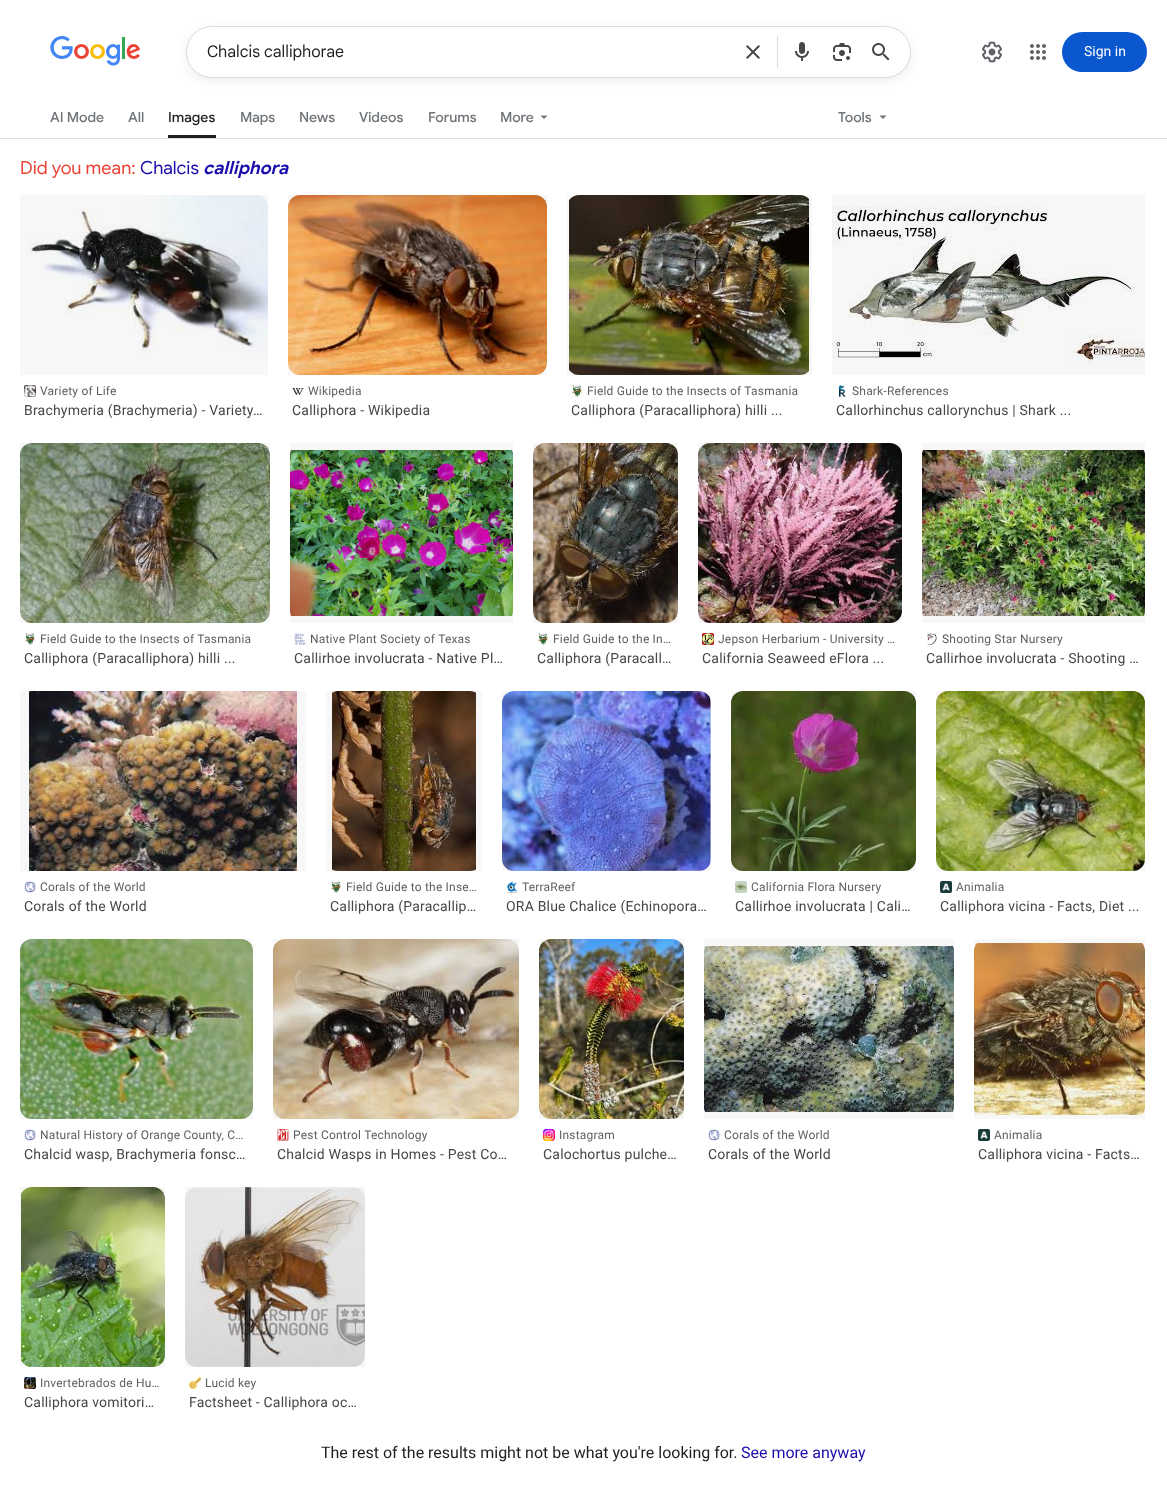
<svg xmlns="http://www.w3.org/2000/svg" width="1167" height="1491">
<style>
.a{font:16px 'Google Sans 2';fill:#1f1f1f}
.b{font:14px Roboto;fill:#fff}
.c{font:500 14px Google Sans;fill:#70757a}
.d{font:500 14px Google Sans;fill:#1f1f1f}
.e{font:18px Google Sans;fill:#ea4335}
.f{font:18px Google Sans;fill:#1a0dab}
.g{font:italic bold 18px Google Sans;fill:#1a0dab}
.h{font:12px Roboto;letter-spacing:0.2px;fill:#5e5e5e}
.i{font:14px Roboto;letter-spacing:0.2px;fill:#474747}
.j{font:16px Roboto;fill:#1f1f1f}
.k{font:16px Roboto;fill:#1a0dab}
</style>
<rect width="100%" height="100%" fill="#fff"/>
<image href="1.png" x="50" y="36" width="90" height="30"/>
<rect fill="#1f1f1f14" filter="blur(5px)" x="186" y="29" width="725" height="52" rx="26"/>
<rect fill="#fff" stroke="#dadce0" x="186.5" y="26.5" width="724" height="51" rx="25.5"/>
<image href="2.png" x="746" y="45" width="14" height="14"/>
<path fill="#dadce0" d="M777 36h1v32H777z"/>
<image href="3.png" x="795" y="42" width="14" height="19"/>
<image href="4.png" x="833" y="43" width="18" height="18"/>
<image href="5.png" x="872" y="43" width="18" height="18"/>
<image href="6.png" x="982" y="41" width="20" height="22"/>
<image href="7.png" x="1030" y="44" width="16" height="16"/>
<rect fill="#0b57d0" x="1062" y="32" width="85" height="40" rx="20"/>
<path fill="#1f1f1f" d="M168 135h48v3H168z"/>
<path fill="#70757a" d="M540.5 115.5l3.5 3.5l3.5-3.5z"/>
<path fill="#70757a" d="M879.5 115.5l3.5 3.5l3.5-3.5z"/>
<path fill="#dadce0" d="M0 138h1167v1H0z"/>
<image href="8.png" x="27" y="195" width="241" height="158"/>
<path fill="#00000008" d="M20 195h248v180H20z"/>
<image href="9.png" x="24" y="385" width="12" height="12"/>
<image href="10.png" x="288" y="195" width="259" height="180"/>
<path fill="#00000008" d="M288 195h259v180H288z"/>
<image href="11.png" x="292" y="388" width="12" height="8"/>
<image href="12.png" x="569" y="195" width="240" height="180"/>
<path fill="#00000008" d="M567 195h245v180H567z"/>
<image href="13.png" x="572" y="385" width="11" height="12"/>
<image href="14.png" x="832" y="206" width="313" height="159"/>
<path fill="#00000008" d="M832 195h313v180H832z"/>
<image href="15.png" x="838" y="385" width="8" height="12"/>
<image href="16.png" x="20" y="443" width="250" height="180"/>
<path fill="#00000008" d="M20 443h250v180H20z"/>
<image href="13.png" x="25" y="633" width="11" height="12"/>
<image href="17.png" x="290" y="450" width="223" height="166"/>
<path fill="#00000008" d="M290 443h223v180H290z"/>
<image href="18.png" x="294" y="633" width="12" height="12"/>
<image href="19.png" x="533" y="443" width="145" height="180"/>
<path fill="#00000008" d="M533 443h145v180H533z"/>
<image href="20.png" x="538" y="633" width="11" height="12"/>
<image href="21.png" x="698" y="443" width="204" height="180"/>
<path fill="#00000008" d="M698 443h204v180H698z"/>
<image href="22.png" x="702" y="633" width="12" height="12"/>
<image href="23.png" x="922" y="450" width="223" height="166"/>
<path fill="#00000008" d="M922 443h223v180H922z"/>
<image href="24.png" x="927" y="633" width="10" height="12"/>
<image href="25.png" x="29" y="691" width="268" height="180"/>
<path fill="#00000008" d="M20 691h286v180H20z"/>
<image href="26.png" x="24" y="881" width="12" height="12"/>
<image href="27.png" x="332" y="691" width="144" height="180"/>
<path fill="#00000008" d="M326 691h156v180H326z"/>
<image href="28.png" x="331" y="881" width="11" height="12"/>
<image href="29.png" x="502" y="691" width="209" height="180"/>
<path fill="#00000008" d="M502 691h209v180H502z"/>
<image href="30.png" x="506" y="881" width="12" height="12"/>
<image href="31.png" x="731" y="691" width="185" height="180"/>
<path fill="#00000008" d="M731 691h185v180H731z"/>
<image href="32.png" x="735" y="881" width="12" height="12"/>
<image href="33.png" x="936" y="691" width="209" height="180"/>
<path fill="#00000008" d="M936 691h209v180H936z"/>
<image href="34.png" x="940" y="881" width="12" height="12"/>
<image href="35.png" x="20" y="939" width="233" height="180"/>
<path fill="#00000008" d="M20 939h233v180H20z"/>
<image href="26.png" x="24" y="1129" width="12" height="12"/>
<image href="36.png" x="273" y="939" width="246" height="180"/>
<path fill="#00000008" d="M273 939h246v180H273z"/>
<image href="37.png" x="277" y="1129" width="12" height="12"/>
<image href="38.png" x="539" y="939" width="145" height="180"/>
<path fill="#00000008" d="M539 939h145v180H539z"/>
<image href="39.png" x="543" y="1129" width="12" height="12"/>
<image href="40.png" x="704" y="946" width="250" height="166"/>
<path fill="#00000008" d="M704 939h250v180H704z"/>
<image href="41.png" x="708" y="1129" width="12" height="12"/>
<image href="42.png" x="974" y="943" width="171" height="172"/>
<path fill="#00000008" d="M974 939h171v180H974z"/>
<image href="43.png" x="978" y="1129" width="12" height="12"/>
<image href="44.png" x="21" y="1187" width="144" height="180"/>
<path fill="#00000008" d="M20 1187h145v180H20z"/>
<image href="45.png" x="24" y="1377" width="12" height="12"/>
<image href="46.png" x="185" y="1187" width="180" height="180"/>
<path fill="#00000008" d="M185 1187h180v180H185z"/>
<image href="47.png" x="189" y="1377" width="12" height="12"/>
<text class="a" x="207" y="57">Chalcis calliphorae</text>
<text class="b" x="1084" y="56">Sign in</text>
<text class="c" x="50" y="122">AI Mode</text>
<text class="c" x="128" y="122">All</text>
<text class="d" x="168" y="122">Images</text>
<text class="c" x="240" y="122">Maps</text>
<text class="c" x="299" y="122">News</text>
<text class="c" x="359" y="122">Videos</text>
<text class="c" x="428" y="122">Forums</text>
<text class="c" x="500" y="122">More</text>
<text class="c" x="838" y="122">Tools</text>
<text class="e" x="20" y="174">Did you mean:</text>
<text class="f" x="140" y="174">Chalcis</text>
<text class="g" x="203" y="174">calliphora</text>
<text class="h" x="40" y="395">Variety of Life</text>
<text class="i" x="24" y="415">Brachymeria (Brachymeria) - Variety…</text>
<text class="h" x="308" y="395">Wikipedia</text>
<text class="i" x="292" y="415">Calliphora - Wikipedia</text>
<text class="h" x="587" y="395">Field Guide to the Insects of Tasmania</text>
<text class="i" x="571" y="415">Calliphora (Paracalliphora) hilli ...</text>
<text class="h" x="852" y="395">Shark-References</text>
<text class="i" x="836" y="415">Callorhinchus callorynchus | Shark ...</text>
<text class="h" x="40" y="643">Field Guide to the Insects of Tasmania</text>
<text class="i" x="24" y="663">Calliphora (Paracalliphora) hilli ...</text>
<text class="h" x="310" y="643">Native Plant Society of Texas</text>
<text class="i" x="294" y="663">Callirhoe involucrata - Native Pl…</text>
<text class="h" x="553" y="643">Field Guide to the In…</text>
<text class="i" x="537" y="663">Calliphora (Paracall…</text>
<text class="h" x="718" y="643">Jepson Herbarium - University …</text>
<text class="i" x="702" y="663">California Seaweed eFlora ...</text>
<text class="h" x="942" y="643">Shooting Star Nursery</text>
<text class="i" x="926" y="663">Callirhoe involucrata - Shooting …</text>
<text class="h" x="40" y="891">Corals of the World</text>
<text class="i" x="24" y="911">Corals of the World</text>
<text class="h" x="346" y="891">Field Guide to the Inse…</text>
<text class="i" x="330" y="911">Calliphora (Paracallip…</text>
<text class="h" x="522" y="891">TerraReef</text>
<text class="i" x="506" y="911">ORA Blue Chalice (Echinopora…</text>
<text class="h" x="751" y="891">California Flora Nursery</text>
<text class="i" x="735" y="911">Callirhoe involucrata | Cali…</text>
<text class="h" x="956" y="891">Animalia</text>
<text class="i" x="940" y="911">Calliphora vicina - Facts, Diet ...</text>
<text class="h" x="40" y="1139">Natural History of Orange County, C…</text>
<text class="i" x="24" y="1159">Chalcid wasp, Brachymeria fonsc…</text>
<text class="h" x="293" y="1139">Pest Control Technology</text>
<text class="i" x="277" y="1159">Chalcid Wasps in Homes - Pest Co…</text>
<text class="h" x="559" y="1139">Instagram</text>
<text class="i" x="543" y="1159">Calochortus pulche…</text>
<text class="h" x="724" y="1139">Corals of the World</text>
<text class="i" x="708" y="1159">Corals of the World</text>
<text class="h" x="994" y="1139">Animalia</text>
<text class="i" x="978" y="1159">Calliphora vicina - Facts…</text>
<text class="h" x="40" y="1387">Invertebrados de Hu…</text>
<text class="i" x="24" y="1407">Calliphora vomitori…</text>
<text class="h" x="205" y="1387">Lucid key</text>
<text class="i" x="189" y="1407">Factsheet - Calliphora oc…</text>
<text class="j" x="321" y="1458">The rest of the results might not be what you're looking for.</text>
<text class="k" x="741" y="1458">See more anyway</text>
</svg>
